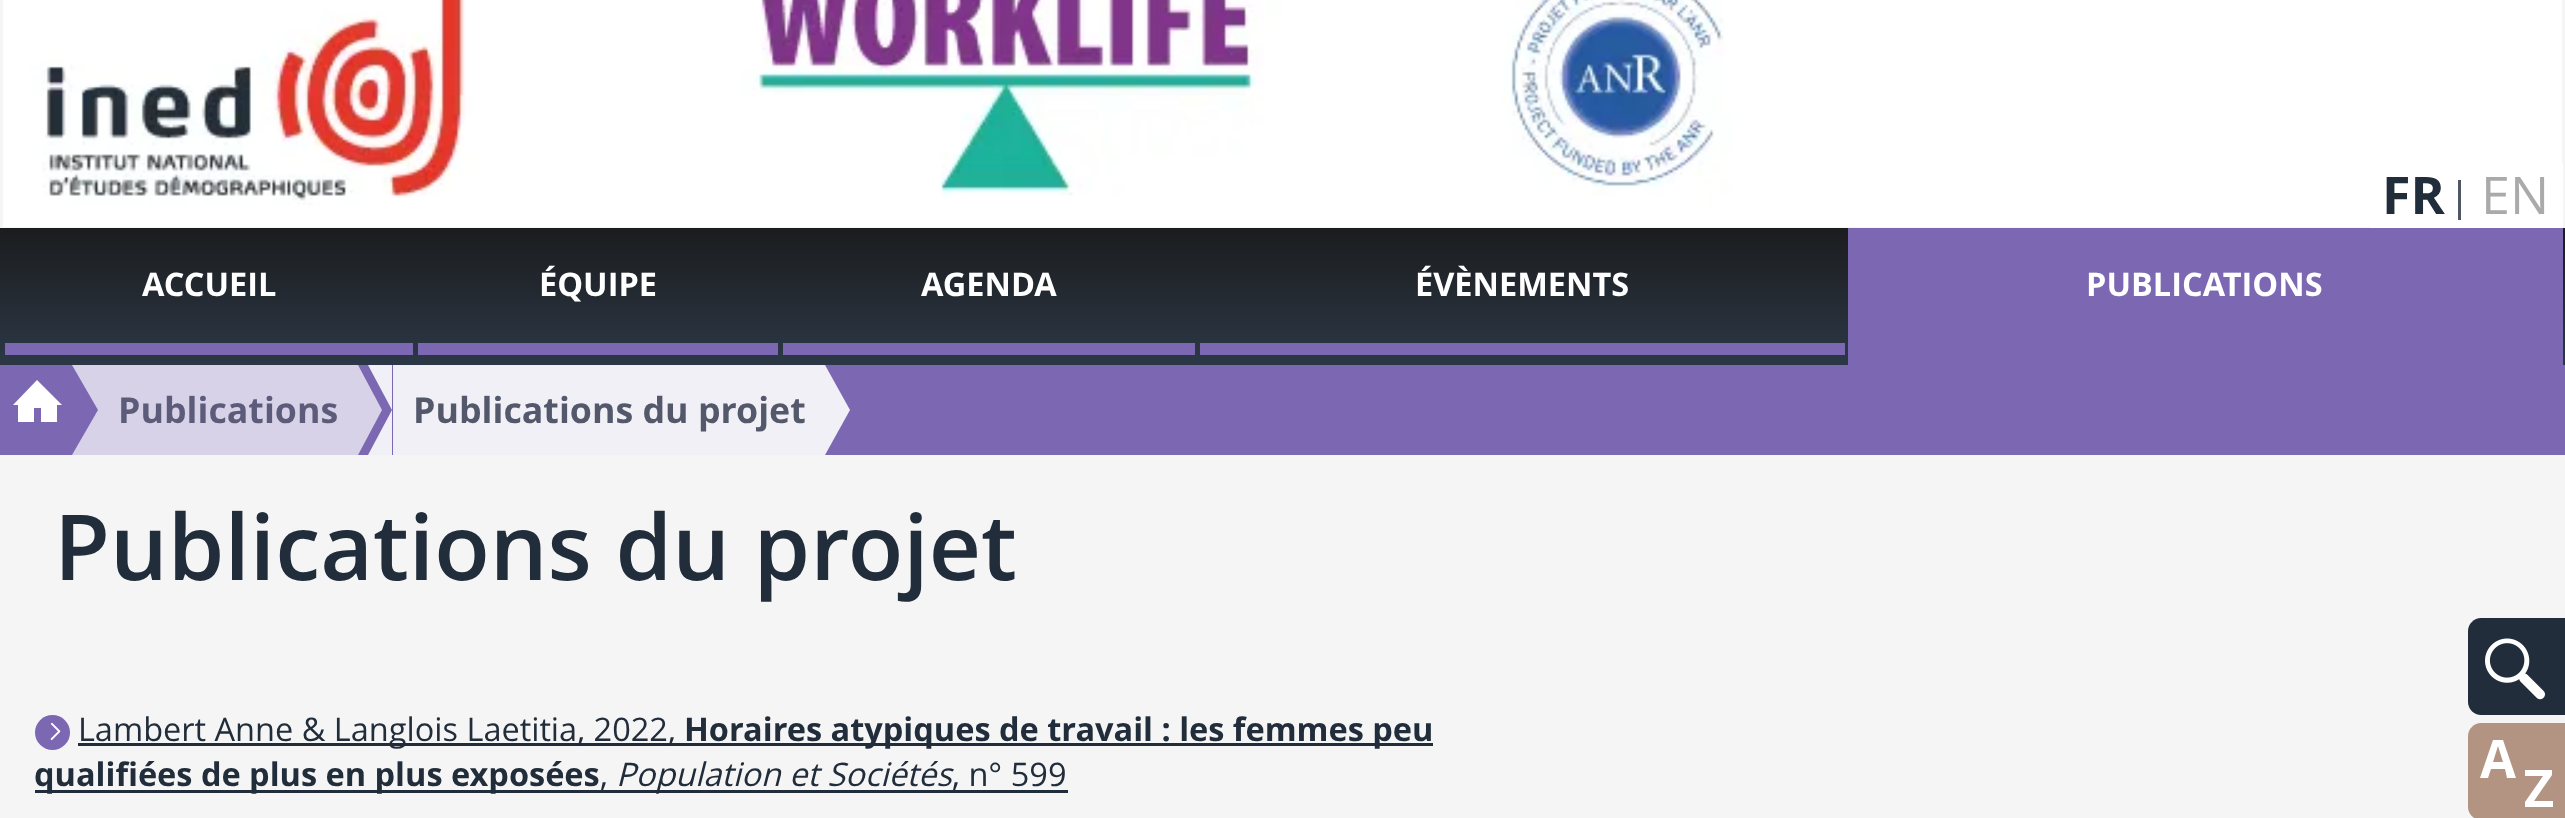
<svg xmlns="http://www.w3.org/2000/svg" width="2565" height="818">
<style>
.a{font:bold 52px Open Sans;fill:#212d3a}
.b{font:52px Open Sans;fill:#aaa}
.c{font:bold 32.5px Open Sans;fill:#fff}
.d{font:bold 35.75px Open Sans;fill:#5c5c7a}
.e{font:bold 35.75px Open Sans;fill:#53596a}
.f{font:600 91px Open Sans;fill:#212d3a}
.g{font:32.5px Open Sans;fill:#212d3a}
.h{font:bold 32.5px Open Sans;fill:#212d3a}
.i{font:italic 32.5px Open Sans;fill:#212d3a}
</style>
<defs>
<linearGradient id="g1" gradientUnits="userSpaceOnUse" x1="1283" y1="227" x2="1283" y2="365"><stop offset="0" stop-color="#1b1c1e"/><stop offset="1" stop-color="#2c3846"/></linearGradient>
</defs>
<rect width="100%" height="100%" fill="#f5f5f5"/>
<image href="1.png" x="3" y="0" width="2559" height="227"/>
<path fill="#fff" d="M2370 163h193v65H2370z"/>
<path fill="#4e5762" d="M2458 180h3v40H2458z"/>
<path fill="url(#g1)" d="M0 228h2565v137H0z"/>
<path fill="#7c68b2" d="M5 343h408v12H5z"/>
<path fill="#7c68b2" d="M418 343h360v12H418z"/>
<path fill="#7c68b2" d="M783 343h412v12H783z"/>
<path fill="#7c68b2" d="M1200 343h645v12H1200z"/>
<path fill="#7c68b2" d="M1848 228h715v137H1848z"/>
<path fill="#7c68b2" d="M0 365h2565v90H0z"/>
<path fill="#fff" d="M37 380l-24 25h5v17h16v-14h7v14h16v-17h5z"/>
<path fill="#d8d2e8" d="M72 365h26v45z"/>
<path fill="#d8d2e8" d="M98 455h-26l26-45z"/>
<path fill="#d8d2e8" d="M98 365h260v90H98z"/>
<path fill="#d8d2e8" d="M358 455v-90l24 45z"/>
<path fill="#f2f0f7" d="M368 365h24v45z"/>
<path fill="#f2f0f7" d="M392 455h-24l24-45z"/>
<path fill="#f2f0f7" d="M393 365h432v90H393z"/>
<path fill="#f2f0f7" d="M825 455v-90l25 45z"/>
<circle fill="#7c68b2" cx="52.5" cy="732.5" r="17.5"/>
<image href="2.png" x="50" y="722" width="11" height="18"/>
<path fill="#212d3a" d="M78 743h1355v3H78z"/>
<path fill="#212d3a" d="M35 790h918v3H35z"/>
<path fill="#212d3a" d="M953 790h115v3H953z"/>
<path fill="#212d3a" d="M2481 618h84v97h-84c-7 0-13-6-13-13v-71c0-7 6-13 13-13z"/>
<image href="3.png" x="2485" y="638" width="60" height="62"/>
<path fill="#b39482" d="M2481 723h84v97h-84c-7 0-13-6-13-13v-71c0-7 6-13 13-13z"/>
<path fill="#fff" d="M2507 778l-2-9h-14l-3 9h-8l13-38h10l13 38zm-4-16l-5-16l-5 16zm50 45h-28v-5l18-26h-18v-6h27v5l-18 26h19z"/>
<text class="a" x="2382" y="214">FR</text>
<text class="b" x="2481" y="214">EN</text>
<text class="c" x="142" y="296">ACCUEIL</text>
<text class="c" x="539" y="296">ÉQUIPE</text>
<text class="c" x="921" y="296">AGENDA</text>
<text class="c" x="1415" y="296">ÉVÈNEMENTS</text>
<text class="c" x="2086" y="296">PUBLICATIONS</text>
<text class="d" x="118" y="423">Publications</text>
<text class="e" x="413" y="423">Publications du projet</text>
<text class="f" x="54" y="580">Publications du projet</text>
<text class="g" x="78" y="741">Lambert Anne &amp; Langlois Laetitia, 2022,</text>
<text class="h" x="684" y="741">Horaires atypiques de travail : les femmes peu</text>
<text class="h" x="34" y="786">qualifiées de plus en plus exposées</text>
<text class="g" x="600" y="786">,</text>
<text class="i" x="616" y="786">Population et Sociétés</text>
<text class="g" x="952" y="786">, n° 599</text>
</svg>
